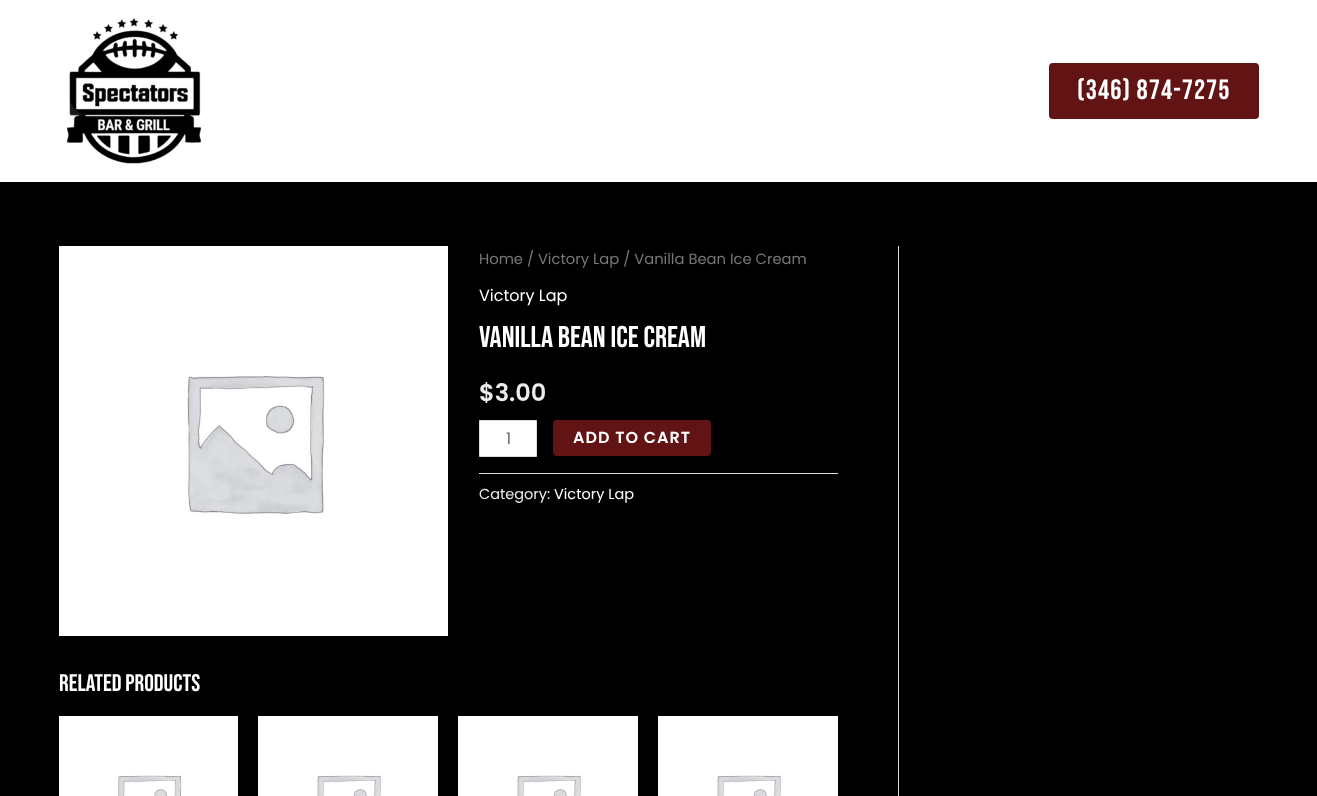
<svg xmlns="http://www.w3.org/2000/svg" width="1317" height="796">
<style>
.a{font:28px Bebas Neue;letter-spacing:1px;fill:#fff}
.b{font:14.75px Poppins;fill:#777}
.c{font:16px Poppins;fill:#fff}
.d{font:30px Bebas Neue;fill:#fff}
.e{font:600 24px Poppins;fill:#eeeaec}
.f{font:16px Poppins;fill:#666}
.g{font:600 16px Poppins;letter-spacing:1px;fill:#fff}
.h{font:14.5px Poppins;fill:#eeeaec}
.i{font:14.5px Poppins;fill:#fff}
.j{font:24px Bebas Neue;fill:#fff}
</style>
<rect width="100%" height="100%" fill="#000"/>
<path fill="#fff" d="M0 0h1317v182H0z"/>
<image href="1.png" x="67" y="17" width="135" height="147"/>
<rect fill="#621313" x="1049" y="63" width="210" height="56" rx="4"/>
<path fill="#ddd" d="M898 246h1v550H898z"/>
<image href="2.png" x="59" y="246" width="389" height="390"/>
<path fill="#fff" stroke="#ddd" d="M479.5 420.5h57v36H479.5z"/>
<rect fill="#621313" x="553" y="420" width="158" height="36" rx="4"/>
<path fill="#ddd" d="M479 473h359v1H479z"/>
<image href="3.png" x="59" y="716" width="179" height="80"/>
<image href="4.png" x="258" y="716" width="180" height="80"/>
<image href="4.png" x="458" y="716" width="180" height="80"/>
<image href="4.png" x="658" y="716" width="180" height="80"/>
<text class="a" x="1077" y="99">(346) 874-7275</text>
<text class="b" x="479" y="264">Home / Victory Lap / Vanilla Bean Ice Cream</text>
<text class="c" x="479" y="301">Victory Lap</text>
<text class="d" x="479" y="347">Vanilla Bean Ice Cream</text>
<text class="e" x="479" y="401">$3.00</text>
<text class="f" x="506" y="444">1</text>
<text class="g" x="573" y="443">ADD TO CART</text>
<text class="h" x="479" y="499">Category:</text>
<text class="i" x="554" y="499">Victory Lap</text>
<text class="j" x="59" y="691">Related products</text>
</svg>
